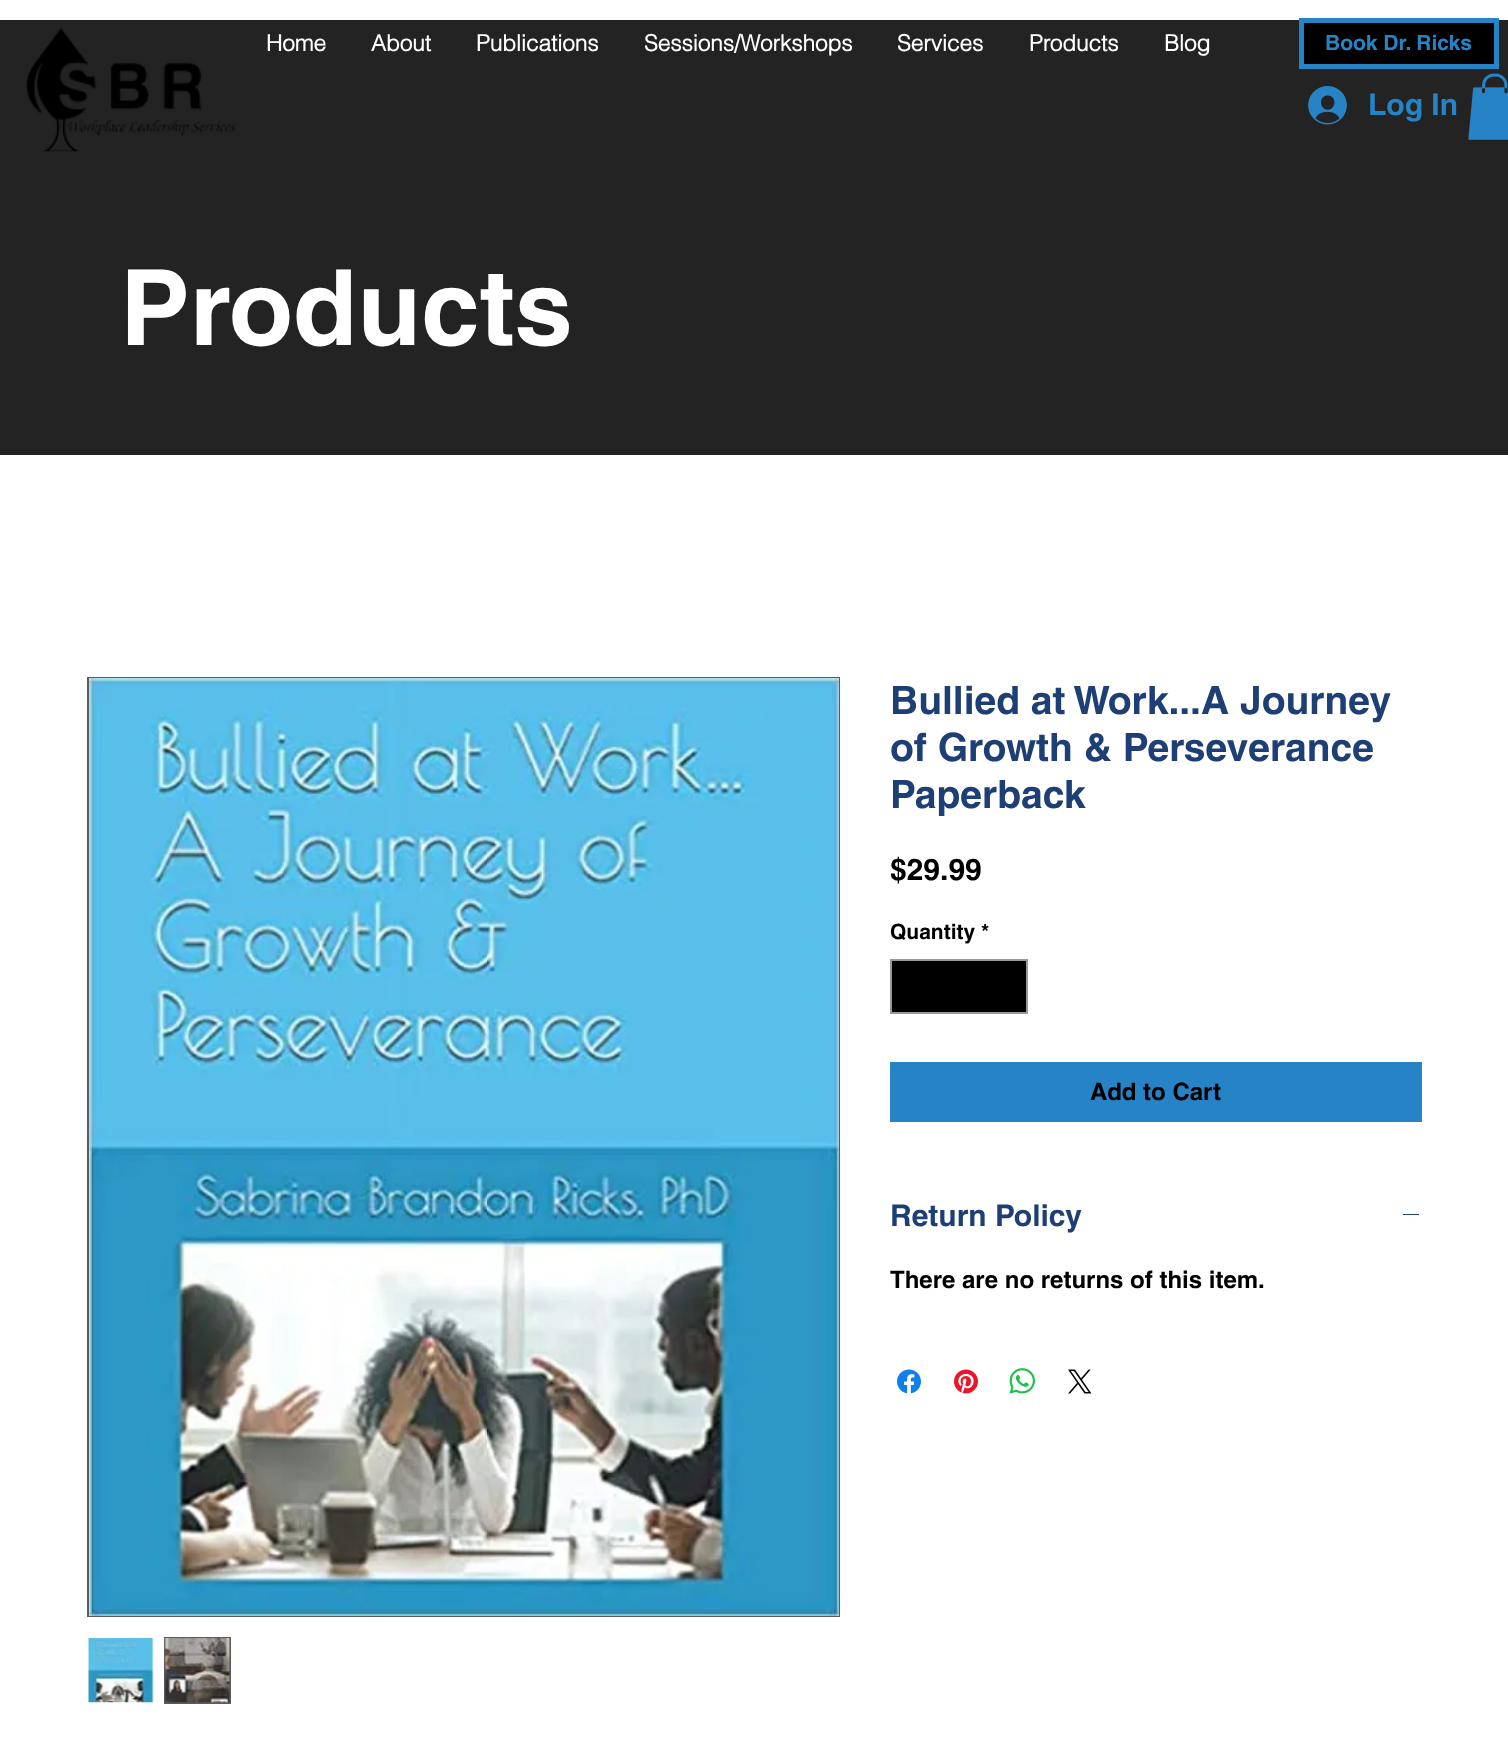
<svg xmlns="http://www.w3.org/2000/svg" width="1508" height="1744">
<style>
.a{font:bold 22.5px 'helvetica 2';fill:#fff}
.b{font:bold 21px helvetica;fill:#2683c6}
.c{font:bold 30px helvetica;fill:#2683c6}
.d{font:bold 105px helvetica;fill:#fff}
.e{font:bold 39px helvetica;fill:#1e3f75}
.f{font:bold 30px helvetica;fill:#000}
.g{font:bold 21px helvetica;fill:#000}
.h{font:bold 24px helvetica;fill:#000}
.i{font:bold 30px helvetica;fill:#1e3f75}
</style>
<rect width="100%" height="100%" fill="#fff"/>
<path fill="#242323" d="M0 20h1508v435H0z"/>
<image href="1.png" x="26" y="28" width="210" height="124"/>
<path fill="#000" stroke="#2683c6" stroke-width="5" d="M1301.5 20.5h195v46H1301.5z"/>
<image href="2.png" x="1308" y="86" width="39" height="39"/>
<image href="3.png" x="1468" y="73" width="40" height="67"/>
<path fill="none" stroke="#5b5b5b" stroke-width="2" d="M88 678h751v938H88z"/>
<image href="4.png" x="89" y="678" width="750" height="938"/>
<image href="5.png" x="88" y="1638" width="66" height="65"/>
<path fill="none" stroke="#5b5b5b" stroke-width="2" d="M165 1638h65v65H165z"/>
<image href="6.png" x="164" y="1638" width="66" height="65"/>
<path fill="#000" stroke="#999" stroke-width="2" d="M891 960h136v53H891z"/>
<path fill="#2683c6" d="M890 1062h532v60H890z"/>
<path fill="#1e3f75" d="M1403 1214h16v1H1403z"/>
<image href="7.png" x="897" y="1369" width="24" height="25"/>
<image href="8.png" x="954" y="1369" width="24" height="25"/>
<image href="9.png" x="1009" y="1368" width="26" height="26"/>
<image href="10.png" x="1068" y="1369" width="24" height="25"/>
<text class="a" x="266" y="51">Home</text>
<text class="a" x="371" y="51">About</text>
<text class="a" x="476" y="51">Publications</text>
<text class="a" x="644" y="51">Sessions/Workshops</text>
<text class="a" x="897" y="51">Services</text>
<text class="a" x="1029" y="51">Products</text>
<text class="a" x="1164" y="51">Blog</text>
<text class="b" x="1325" y="50">Book Dr. Ricks</text>
<text class="c" x="1368" y="115">Log In</text>
<text class="d" x="120" y="345">Products</text>
<text class="e" x="890" y="714">Bullied at Work...A Journey</text>
<text class="e" x="890" y="761">of Growth &amp; Perseverance</text>
<text class="e" x="890" y="808">Paperback</text>
<text class="f" x="890" y="880">$29.99</text>
<text class="g" x="890" y="939">Quantity *</text>
<text class="h" x="1090" y="1100">Add to Cart</text>
<text class="i" x="890" y="1226">Return Policy</text>
<text class="h" x="890" y="1288">There are no returns of this item.</text>
</svg>
